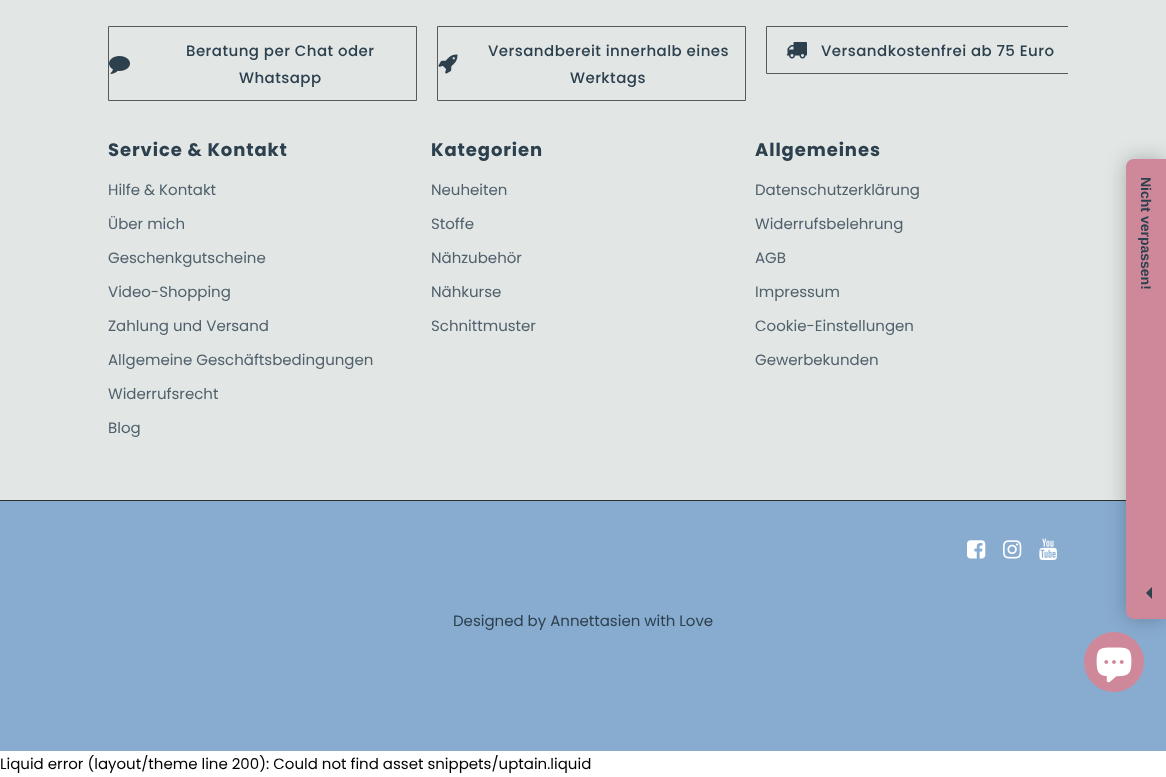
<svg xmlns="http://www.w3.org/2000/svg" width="1166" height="777">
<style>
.a{font:500 15px Poppins;letter-spacing:0.45px;fill:#2d404e}
.b{font:bold 18px Poppins;letter-spacing:0.9px;fill:#2d404e}
.c{font:15px Poppins;fill:#51616c}
.d{font:15px Poppins;fill:#2d404e}
.e{font:bold 14px Liberation Sans;fill:#2d404e}
.f{font:15px Poppins;fill:#000}
</style>
<defs>
<clipPath id="clip1"><path d="M98 26h970v75H98z"/></clipPath>
</defs>
<rect width="100%" height="100%" fill="#fff"/>
<path fill="#e2e6e5" d="M0 0h1166v500H0z"/>
<path fill="none" stroke="#595959" d="M108.5 26.5h308v74H108.5z"/>
<image href="1.png" x="109" y="56" width="21" height="18"/>
<path fill="none" stroke="#595959" d="M437.5 26.5h308v74H437.5z"/>
<image href="2.png" x="438" y="54" width="20" height="20"/>
<g clip-path="url(#clip1)">
<path fill="none" stroke="#595959" d="M766.5 26.5h308v47H766.5z"/>
</g>
<image href="3.png" x="786" y="42" width="21" height="17"/>
<path fill="#88acd0" d="M0 501h1166v250H0z"/>
<path fill="#2e2e2e" d="M0 500h1126v1H0z"/>
<image href="4.png" x="967" y="540" width="19" height="19"/>
<image href="5.png" x="1003" y="540" width="19" height="19"/>
<image href="6.png" x="1039" y="538" width="18" height="23"/>
<rect fill="#00000040" filter="blur(10px)" x="1126" y="159" width="40" height="460" rx="8"/>
<path fill="#cf889a" d="M1134 159h32v460h-32c-4.5 0-8-3.5-8-8v-444c0-4.5 3.5-8 8-8z"/>
<path fill="#2d404e" d="M1152 587v12l-6-6z"/>
<circle fill="#cf889a" cx="1114" cy="662" r="30"/>
<image href="7.png" x="1096" y="647" width="36" height="36"/>
<text class="a" x="186" y="56">Beratung per Chat oder</text>
<text class="a" x="239" y="83">Whatsapp</text>
<text class="a" x="488" y="56">Versandbereit innerhalb eines</text>
<text class="a" x="570" y="83">Werktags</text>
<text class="a" x="821" y="56">Versandkostenfrei ab 75 Euro</text>
<text class="b" x="108" y="156">Service &amp; Kontakt</text>
<text class="c" x="108" y="195">Hilfe &amp; Kontakt</text>
<text class="c" x="108" y="229">Über mich</text>
<text class="c" x="108" y="263">Geschenkgutscheine</text>
<text class="c" x="108" y="297">Video-Shopping</text>
<text class="c" x="108" y="331">Zahlung und Versand</text>
<text class="c" x="108" y="365">Allgemeine Geschäftsbedingungen</text>
<text class="c" x="108" y="399">Widerrufsrecht</text>
<text class="c" x="108" y="433">Blog</text>
<text class="b" x="431" y="156">Kategorien</text>
<text class="c" x="431" y="195">Neuheiten</text>
<text class="c" x="431" y="229">Stoffe</text>
<text class="c" x="431" y="263">Nähzubehör</text>
<text class="c" x="431" y="297">Nähkurse</text>
<text class="c" x="431" y="331">Schnittmuster</text>
<text class="b" x="755" y="156">Allgemeines</text>
<text class="c" x="755" y="195">Datenschutzerklärung</text>
<text class="c" x="755" y="229">Widerrufsbelehrung</text>
<text class="c" x="755" y="263">AGB</text>
<text class="c" x="755" y="297">Impressum</text>
<text class="c" x="755" y="331">Cookie-Einstellungen</text>
<text class="c" x="755" y="365">Gewerbekunden</text>
<text class="d" x="453" y="626">Designed by Annettasien with Love</text>
<text class="e" x="1141" y="177" transform="rotate(90 1141 177)">Nicht verpassen!</text>
<text class="f" x="0" y="769">Liquid error (layout/theme line 200): Could not find asset snippets/uptain.liquid</text>
</svg>
